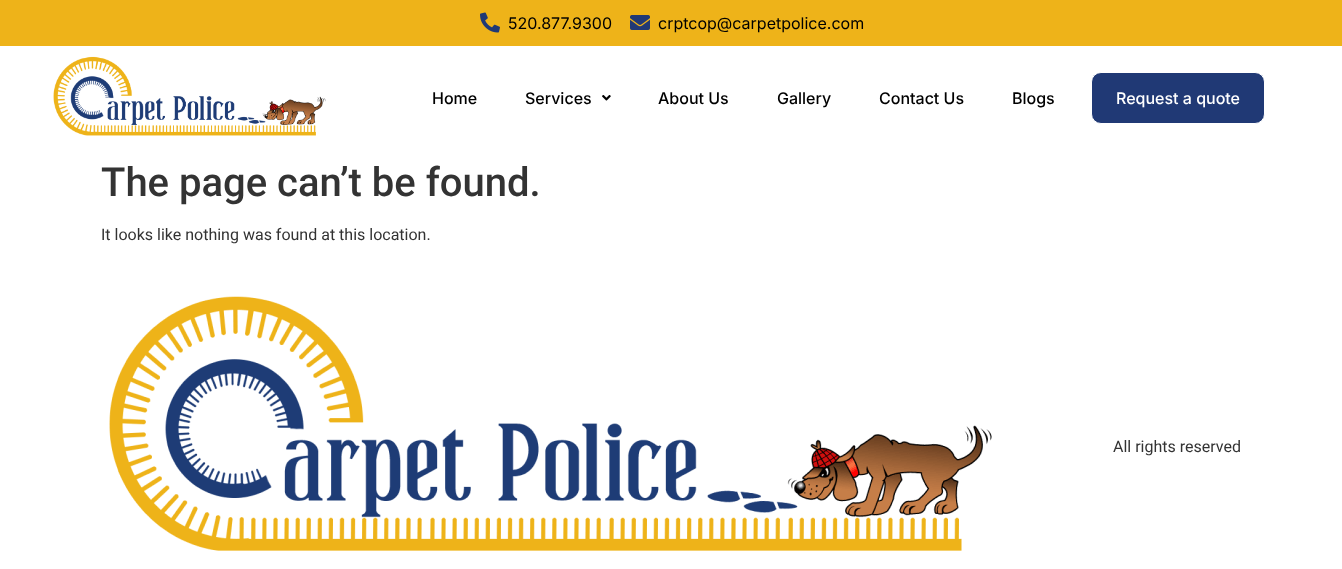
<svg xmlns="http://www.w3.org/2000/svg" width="1342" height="569">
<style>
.a{font:16px Inter;fill:#000}
.b{font:500 16px Inter;fill:#000}
.c{font:500 16px Inter;fill:#fff}
.d{font:500 40px Roboto;fill:#333}
.e{font:16px Roboto;fill:#333}
</style>
<rect width="100%" height="100%" fill="#fff"/>
<path fill="#eeb319" d="M0 0h1342v46H0z"/>
<image href="1.png" x="480" y="12" width="20" height="21"/>
<image href="2.png" x="630" y="15" width="20" height="15"/>
<image href="3.png" x="53" y="56" width="273" height="80"/>
<image href="4.png" x="602" y="95" width="9" height="6"/>
<rect fill="#203975" stroke="#fff" x="1091.5" y="72.5" width="173" height="51" rx="9.5"/>
<image href="5.png" x="109" y="296" width="883" height="255"/>
<text class="a" x="508" y="29">520.877.9300</text>
<text class="a" x="658" y="29">crptcop@carpetpolice.com</text>
<text class="b" x="432" y="104">Home</text>
<text class="b" x="525" y="104">Services</text>
<text class="b" x="658" y="104">About Us</text>
<text class="b" x="777" y="104">Gallery</text>
<text class="b" x="879" y="104">Contact Us</text>
<text class="b" x="1012" y="104">Blogs</text>
<text class="c" x="1116" y="104">Request a quote</text>
<text class="d" x="101" y="196">The page can’t be found.</text>
<text class="e" x="101" y="240">It looks like nothing was found at this location.</text>
<text class="e" x="1113" y="452">All rights reserved</text>
</svg>
